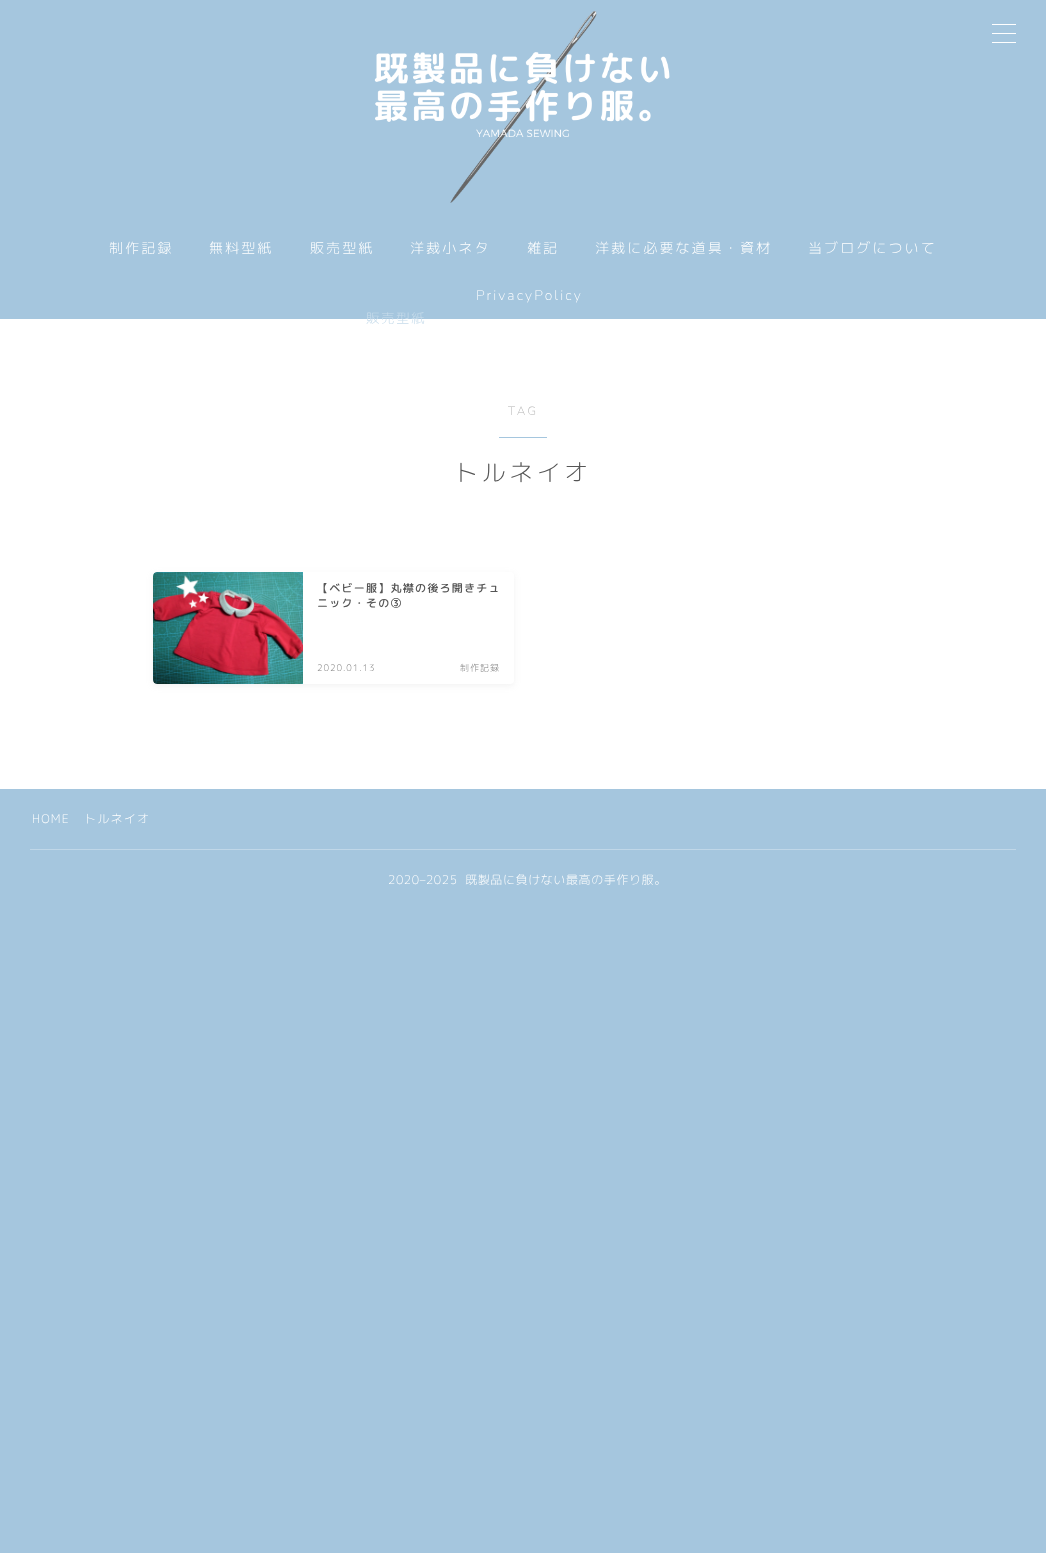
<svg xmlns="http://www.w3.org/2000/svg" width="1046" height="1553">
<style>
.a{font:300 14px 'Rounded Mplus 1c';letter-spacing:2.1px;fill:#fff}
.b{font:200 14px Nunito;letter-spacing:2.1px;fill:#fff}
.c{font:300 13.5px 'Rounded Mplus 1c';letter-spacing:1.5px;fill:#c7dceb}
.d{font:200 12px Nunito;letter-spacing:2.5px;fill:#b3b3b3}
.e{font:300 24px 'Rounded Mplus 1c';letter-spacing:3.5px;fill:#555}
.f{font:500 11px 'Rounded Mplus 1c';letter-spacing:1.25px;fill:#555}
.g{font:300 9px 'Rounded Mplus 1c';letter-spacing:1px;fill:#808080}
.h{font:300 12px 'Rounded Mplus 1c';letter-spacing:1.25px;fill:#fff}
.i{font:300 12px 'Rounded Mplus 1c';letter-spacing:0.6px;fill:#fff}
</style>
<rect width="100%" height="100%" fill="#a5c6de"/>
<image href="1.png" x="374" y="11" width="296" height="192"/>
<path fill="#fff" d="M992 24h24v1H992z"/>
<path fill="#fff" d="M992 33h24v1H992z"/>
<path fill="#fff" d="M992 42h24v1H992z"/>
<path fill="#fff" d="M0 319h1046v470H0z"/>
<path fill="#a5c6de" d="M499 437h48v1H499z"/>
<rect fill="#aaaaaa26" filter="blur(3px)" x="153" y="574" width="361" height="112" rx="4"/>
<rect fill="#fff" x="153" y="572" width="361" height="112" rx="4"/>
<image href="2.png" x="153" y="572" width="150" height="112"/>
<path fill="#c0d7e8" d="M30 849h986v1H30z"/>
<text class="a" x="109" y="253">制作記録</text>
<text class="a" x="209" y="253">無料型紙</text>
<text class="a" x="310" y="253">販売型紙</text>
<text class="a" x="410" y="253">洋裁小ネタ</text>
<text class="a" x="527" y="253">雑記</text>
<text class="a" x="595" y="253">洋裁に必要な道具・資材</text>
<text class="a" x="808" y="253">当ブログについて</text>
<text class="b" x="476" y="300">PrivacyPolicy</text>
<text class="c" x="366" y="323">販売型紙</text>
<text class="d" x="508" y="415">TAG</text>
<text class="e" x="454" y="481">トルネイオ</text>
<text class="f" x="317" y="592">【ベビー服】丸襟の後ろ開きチュ</text>
<text class="f" x="317" y="607">ニック・その③</text>
<text class="g" x="317" y="671">2020.01.13</text>
<text class="g" x="460" y="671">制作記録</text>
<text class="h" x="32" y="823">HOME</text>
<text class="h" x="84" y="823">トルネイオ</text>
<text class="i" xml:space="preserve" x="388" y="884">2020–2025  既製品に負けない最高の手作り服。</text>
</svg>
